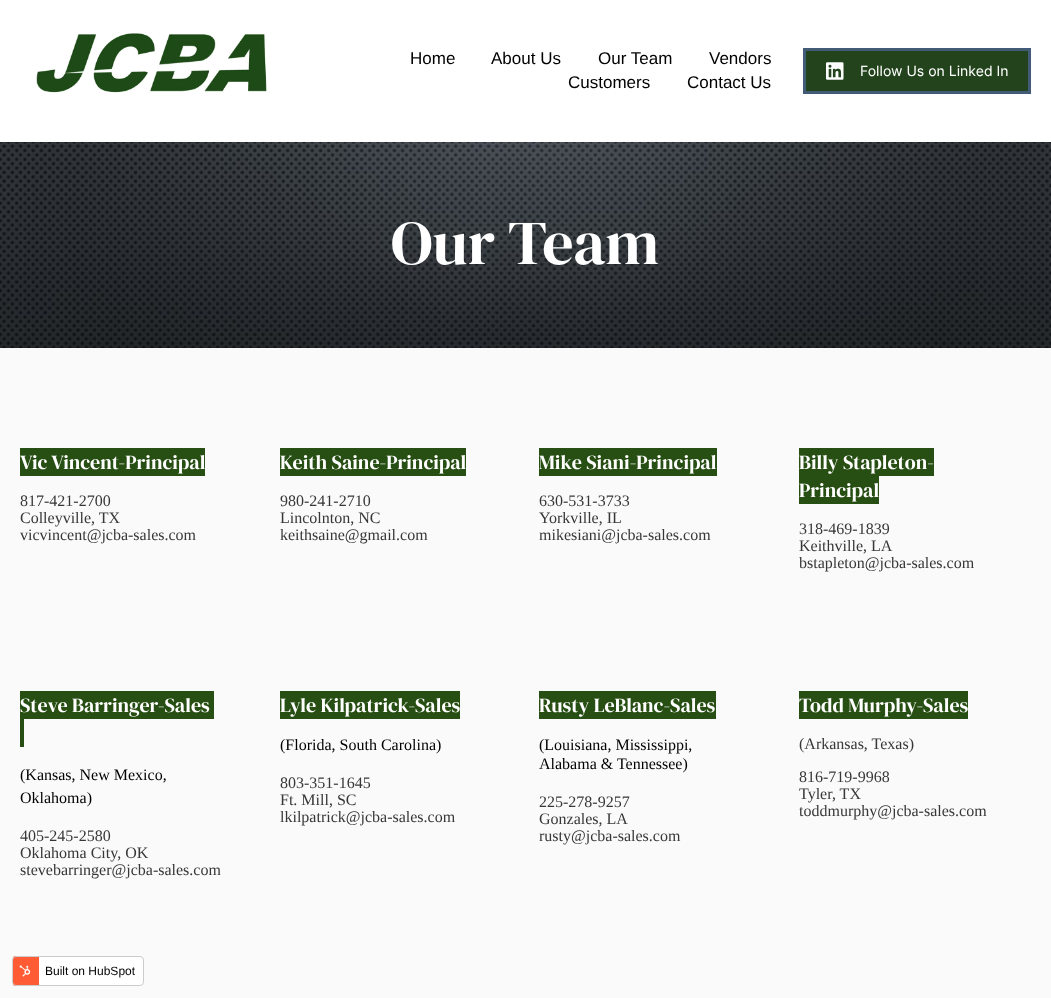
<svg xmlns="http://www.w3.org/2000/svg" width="1051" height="998">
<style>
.a{font:17px Liberation Sans;fill:#000}
.b{font:14px Inter;fill:#fff}
.c{font:62px DM Serif Display;fill:#fff}
.d{font:20px DM Serif Display;fill:#fff}
.e{font:16px Liberation Serif;fill:#373737}
.f{font:16px Liberation Serif;fill:#000}
.g{font:12px Liberation Sans;fill:#000}
</style>
<defs>
<clipPath id="clip1"><rect x="12" y="956" width="132" height="30" rx="4"/></clipPath>
</defs>
<rect width="100%" height="100%" fill="#fff"/>
<image href="1.png" x="36" y="33" width="231" height="60"/>
<path fill="#22431b" stroke="#425b76" stroke-width="3" d="M804.5 49.5h225v43H804.5z"/>
<image href="2.png" x="826" y="62" width="18" height="18"/>
<image href="3.png" x="0" y="142" width="1051" height="206"/>
<path fill="#fafafa" d="M0 348h1051v650H0z"/>
<path fill="#274e13" d="M20 448h185v28H20z"/>
<path fill="#274e13" d="M280 448h186v28H280z"/>
<path fill="#274e13" d="M539 448h178v28H539z"/>
<path fill="#274e13" d="M799 448h135v28H799z"/>
<path fill="#274e13" d="M799 476h80v28H799z"/>
<path fill="#274e13" d="M20 691h194v28H20z"/>
<path fill="#274e13" d="M20 719h4v28H20z"/>
<path fill="#274e13" d="M280 691h180v28H280z"/>
<path fill="#274e13" d="M539 691h177v28H539z"/>
<path fill="#274e13" d="M799 691h169v28H799z"/>
<g clip-path="url(#clip1)">
<path fill="#ff5c35" d="M13 956h26v30H13z"/>
<path fill="#fff" d="M39 956h104v30H39z"/>
</g>
<rect fill="none" stroke="#ccc" x="12.5" y="956.5" width="131" height="29" rx="3.5"/>
<image href="4.png" x="19" y="965" width="12" height="12"/>
<text class="a" x="410" y="64">Home</text>
<text class="a" x="491" y="64">About Us</text>
<text class="a" x="598" y="64">Our Team</text>
<text class="a" x="709" y="64">Vendors</text>
<text class="a" x="568" y="88">Customers</text>
<text class="a" x="687" y="88">Contact Us</text>
<text class="b" x="860" y="76">Follow Us on Linked In</text>
<text class="c" x="391" y="264">Our Team</text>
<text class="d" x="20" y="469">Vic Vincent-Principal</text>
<text class="e" x="20" y="506">817-421-2700</text>
<text class="e" x="20" y="523">Colleyville, TX</text>
<text class="e" x="20" y="540">vicvincent@jcba-sales.com</text>
<text class="d" x="280" y="469">Keith Saine-Principal</text>
<text class="e" x="280" y="506">980-241-2710</text>
<text class="e" x="280" y="523">Lincolnton, NC</text>
<text class="e" x="280" y="540">keithsaine@gmail.com</text>
<text class="d" x="539" y="469">Mike Siani-Principal</text>
<text class="e" x="539" y="506">630-531-3733</text>
<text class="e" x="539" y="523">Yorkville, IL</text>
<text class="e" x="539" y="540">mikesiani@jcba-sales.com</text>
<text class="d" x="799" y="469">Billy Stapleton-</text>
<text class="d" x="799" y="497">Principal</text>
<text class="e" x="799" y="534">318-469-1839</text>
<text class="e" x="799" y="551">Keithville, LA</text>
<text class="e" x="799" y="568">bstapleton@jcba-sales.com</text>
<text class="d" x="20" y="712">Steve Barringer-Sales</text>
<text class="f" x="20" y="780">(Kansas, New Mexico,</text>
<text class="f" x="20" y="803">Oklahoma)</text>
<text class="e" x="20" y="841">405-245-2580</text>
<text class="e" x="20" y="858">Oklahoma City, OK</text>
<text class="e" x="20" y="875">stevebarringer@jcba-sales.com</text>
<text class="d" x="280" y="712">Lyle Kilpatrick-Sales</text>
<text class="f" x="280" y="750">(Florida, South Carolina)</text>
<text class="e" x="280" y="788">803-351-1645</text>
<text class="e" x="280" y="805">Ft. Mill, SC</text>
<text class="e" x="280" y="822">lkilpatrick@jcba-sales.com</text>
<text class="d" x="539" y="712">Rusty LeBlanc-Sales</text>
<text class="f" x="539" y="750">(Louisiana, Mississippi,</text>
<text class="f" x="539" y="769">Alabama &amp; Tennessee)</text>
<text class="e" x="539" y="807">225-278-9257</text>
<text class="e" x="539" y="824">Gonzales, LA</text>
<text class="e" x="539" y="841">rusty@jcba-sales.com</text>
<text class="d" x="799" y="712">Todd Murphy-Sales</text>
<text class="e" x="799" y="749">(Arkansas, Texas)</text>
<text class="e" x="799" y="782">816-719-9968</text>
<text class="e" x="799" y="799">Tyler, TX</text>
<text class="e" x="799" y="816">toddmurphy@jcba-sales.com</text>
<text class="g" x="45" y="975">Built on HubSpot</text>
</svg>
